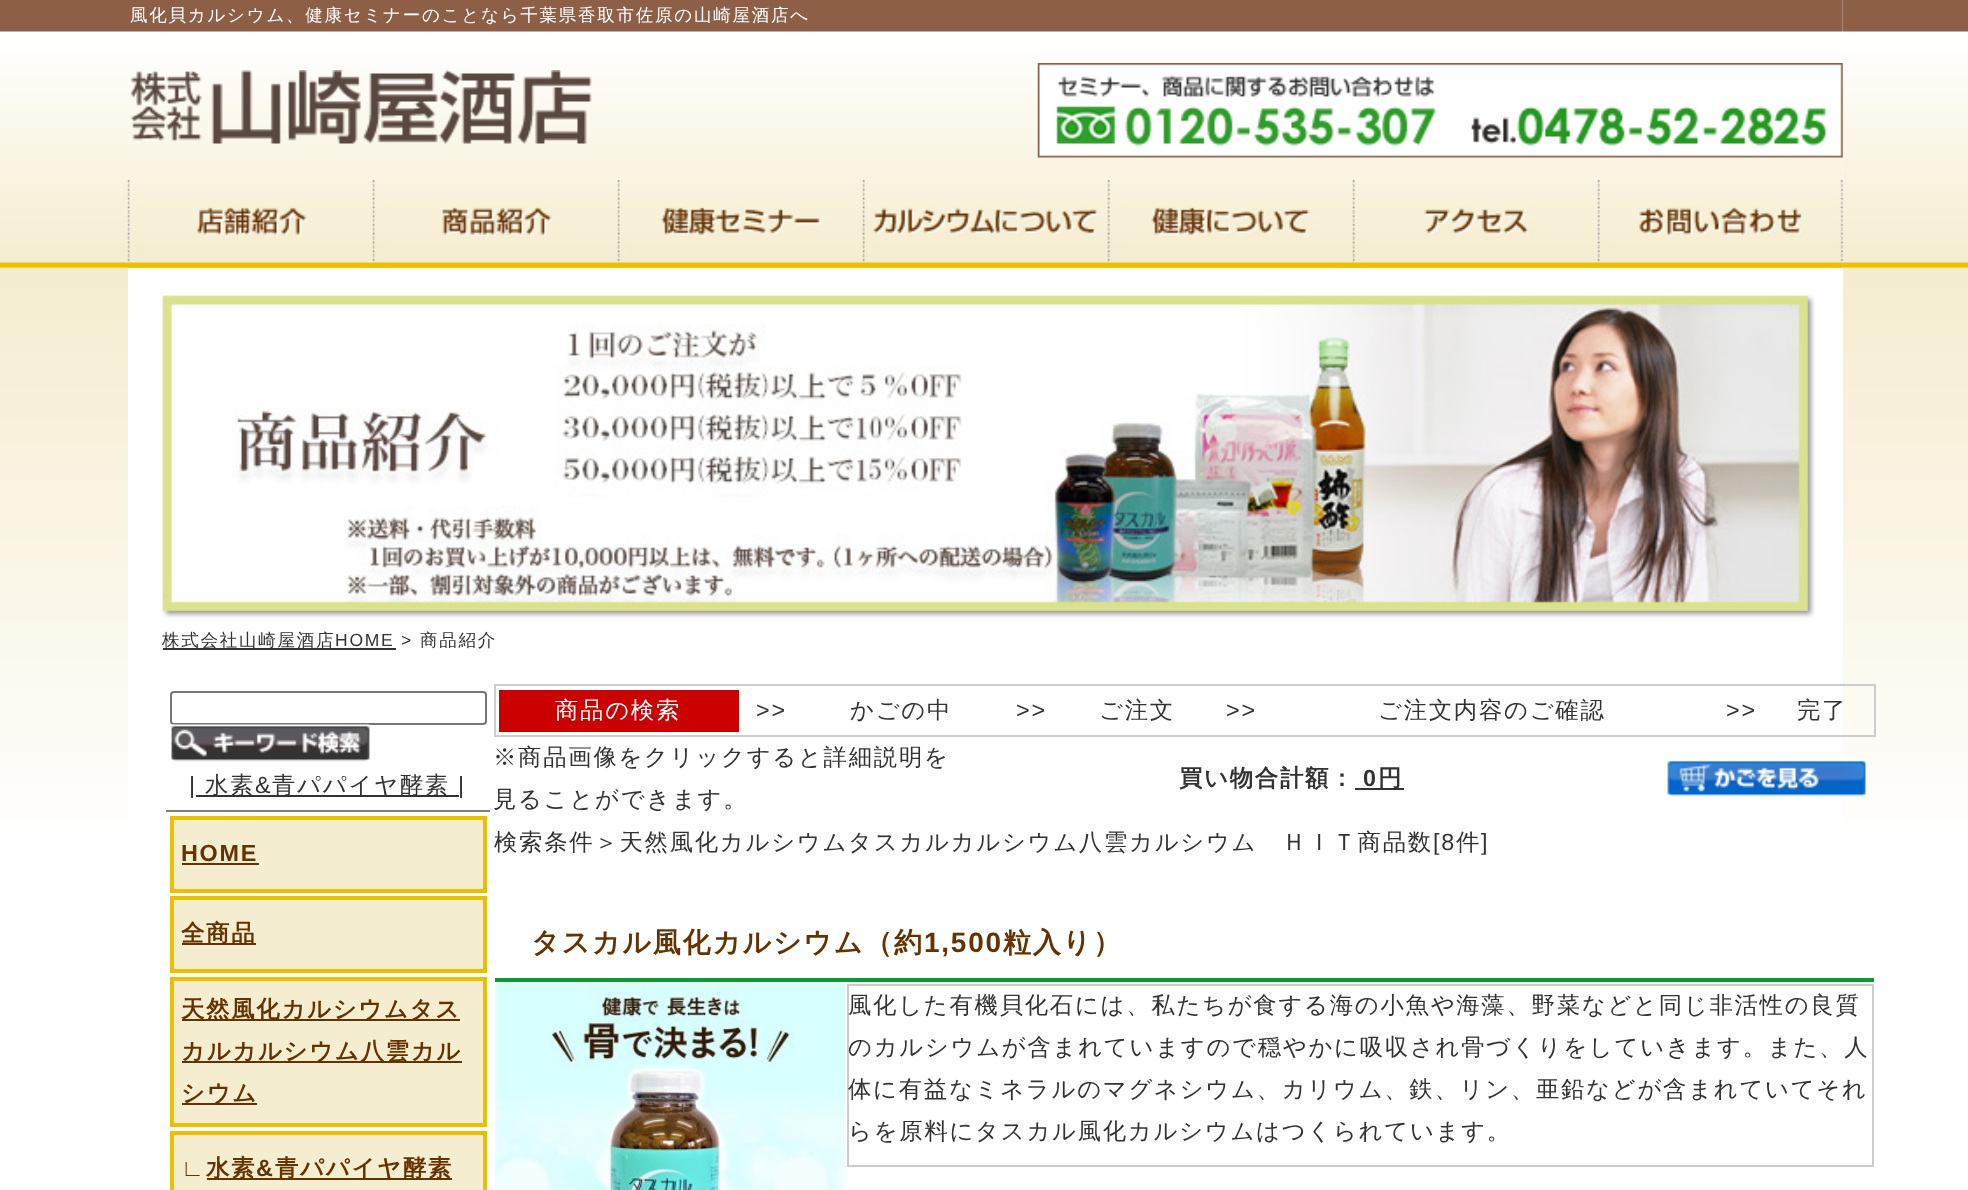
<svg xmlns="http://www.w3.org/2000/svg" width="1968" height="1190">
<style>
.a{font:500 17.5px WenQuanYi Zen Hei;letter-spacing:1.75px;fill:#fff}
.b{font:500 17.5px WenQuanYi Zen Hei;letter-spacing:1.75px;fill:#333}
.c{font:17.5px Liberation Sans;letter-spacing:1.75px;fill:#333}
.d{font:23.35px Liberation Sans;letter-spacing:1.75px;fill:#333}
.e{font:500 23.35px WenQuanYi Zen Hei;letter-spacing:1.75px;fill:#333}
.f{font:bold 23.35px Liberation Sans;letter-spacing:1.75px;fill:#663200}
.g{font:bold 23.35px WenQuanYi Zen Hei;letter-spacing:1.75px;fill:#663200}
.h{font:500 23.35px WenQuanYi Zen Hei;letter-spacing:1.75px;fill:#fff}
.i{font:bold 23.35px WenQuanYi Zen Hei;letter-spacing:1.75px;fill:#333}
.j{font:bold 23.35px Liberation Sans;letter-spacing:1.75px;fill:#333}
.k{font:bold 28px WenQuanYi Zen Hei;letter-spacing:1.75px;fill:#663200}
.l{font:bold 28px Liberation Sans;letter-spacing:1.75px;fill:#663200}
</style>
<rect width="100%" height="100%" fill="#fff"/>
<image href="1.png" x="0" y="0" width="1968" height="826"/>
<path fill="#fff" d="M128 0h1715v826H128z"/>
<image href="2.png" x="128" y="0" width="1715" height="268"/>
<image href="3.png" x="130" y="70" width="462" height="74"/>
<image href="4.png" x="1037" y="63" width="806" height="95"/>
<image href="5.png" x="127" y="180" width="246" height="88"/>
<image href="6.png" x="372" y="180" width="246" height="88"/>
<image href="7.png" x="617" y="180" width="246" height="88"/>
<image href="8.png" x="862" y="180" width="246" height="88"/>
<image href="9.png" x="1107" y="180" width="246" height="88"/>
<image href="10.png" x="1352" y="180" width="246" height="88"/>
<image href="11.png" x="1597" y="180" width="246" height="88"/>
<path fill="#999" filter="blur(2.5px)" d="M166 299h1645v315H166z"/>
<image href="12.png" x="162" y="295" width="1646" height="316"/>
<path fill="#333" d="M163 648h233v2H163z"/>
<rect fill="none" stroke="#767676" stroke-width="2" x="171" y="692" width="315" height="32" rx="3"/>
<image href="13.png" x="171" y="724" width="199" height="38"/>
<path fill="#333" d="M196 795h263v2H196z"/>
<path fill="#808080" d="M166 810h324v2H166z"/>
<path fill="#f4edd0" stroke="#eebf00" stroke-width="4" d="M172 818h313v73H172z"/>
<path fill="#663200" d="M182 863h77v2H182z"/>
<path fill="#f4edd0" stroke="#eebf00" stroke-width="4" d="M172 898h313v73H172z"/>
<path fill="#663200" d="M182 943h74v2H182z"/>
<path fill="#f4edd0" stroke="#eebf00" stroke-width="4" d="M172 979h313v146H172z"/>
<path fill="#663200" d="M182 1019h278v2H182z"/>
<path fill="#663200" d="M182 1061h280v2H182z"/>
<path fill="#663200" d="M182 1103h75v2H182z"/>
<path fill="#f4edd0" stroke="#eebf00" stroke-width="4" d="M172 1133h313v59H172z"/>
<path fill="#663200" d="M207 1178h245v2H207z"/>
<path fill="none" stroke="#ccc" stroke-width="2" d="M495 685h1380v51H495z"/>
<path fill="#c00" d="M499 690h240v42H499z"/>
<path fill="#333" d="M1355 788h49v2H1355z"/>
<image href="14.png" x="1667" y="759" width="200" height="38"/>
<path fill="#099a31" d="M495 978h1379v4H495z"/>
<image href="15.png" x="495" y="983" width="351" height="207"/>
<path fill="none" stroke="#ccc" stroke-width="2" d="M848 985h1025v181H848z"/>
<text class="a" x="130" y="21">風化貝カルシウム、健康セミナーのことなら千葉県香取市佐原の山崎屋酒店へ</text>
<text class="b" x="162" y="646">株式会社山崎屋酒店</text>
<text class="c" x="335" y="646">HOME &gt;</text>
<text class="b" x="420" y="646">商品紹介</text>
<text class="d" x="189" y="793">|</text>
<text class="e" x="205" y="793">水素</text>
<text class="d" x="255" y="793">&amp;</text>
<text class="e" x="272" y="793">青パパイヤ酵素</text>
<text class="d" x="458" y="793">|</text>
<text class="f" x="181" y="861">HOME</text>
<text class="g" x="181" y="941">全商品</text>
<text class="g" x="181" y="1017">天然風化カルシウムタス</text>
<text class="g" x="181" y="1059">カルカルシウム八雲カル</text>
<text class="g" x="181" y="1101">シウム</text>
<text class="f" x="181" y="1176">∟</text>
<text class="g" x="206" y="1176">水素</text>
<text class="f" x="256" y="1176">&amp;</text>
<text class="g" x="275" y="1176">青パパイヤ酵素</text>
<text class="h" x="555" y="718">商品の検索</text>
<text class="d" x="756" y="718">&gt;&gt;</text>
<text class="e" x="850" y="718">かごの中</text>
<text class="d" x="1016" y="718">&gt;&gt;</text>
<text class="e" x="1099" y="718">ご注文</text>
<text class="d" x="1226" y="718">&gt;&gt;</text>
<text class="e" x="1378" y="718">ご注文内容のご確認</text>
<text class="d" x="1726" y="718">&gt;&gt;</text>
<text class="e" x="1797" y="718">完了</text>
<text class="e" x="493" y="765">※商品画像をクリックすると詳細説明を</text>
<text class="e" x="493" y="807">見ることができます。</text>
<text class="i" x="1179" y="786">買い物合計額：</text>
<text class="j" x="1363" y="786">0</text>
<text class="i" x="1378" y="786">円</text>
<text class="e" x="494" y="850">検索条件＞天然風化カルシウムタスカルカルシウム八雲カルシウム　ＨＩＴ商品数</text>
<text class="d" x="1433" y="850">[8</text>
<text class="e" x="1456" y="850">件</text>
<text class="d" x="1481" y="850">]</text>
<text class="k" x="531" y="952">タスカル風化カルシウム（約</text>
<text class="l" x="924" y="952">1,500</text>
<text class="k" x="1003" y="952">粒入り）</text>
<text class="e" x="848" y="1013">風化した有機貝化石には、私たちが食する海の小魚や海藻、野菜などと同じ非活性の良質</text>
<text class="e" x="848" y="1055">のカルシウムが含まれていますので穏やかに吸収され骨づくりをしていきます。また、人</text>
<text class="e" x="848" y="1097">体に有益なミネラルのマグネシウム、カリウム、鉄、リン、亜鉛などが含まれていてそれ</text>
<text class="e" x="848" y="1139">らを原料にタスカル風化カルシウムはつくられています。</text>
</svg>
